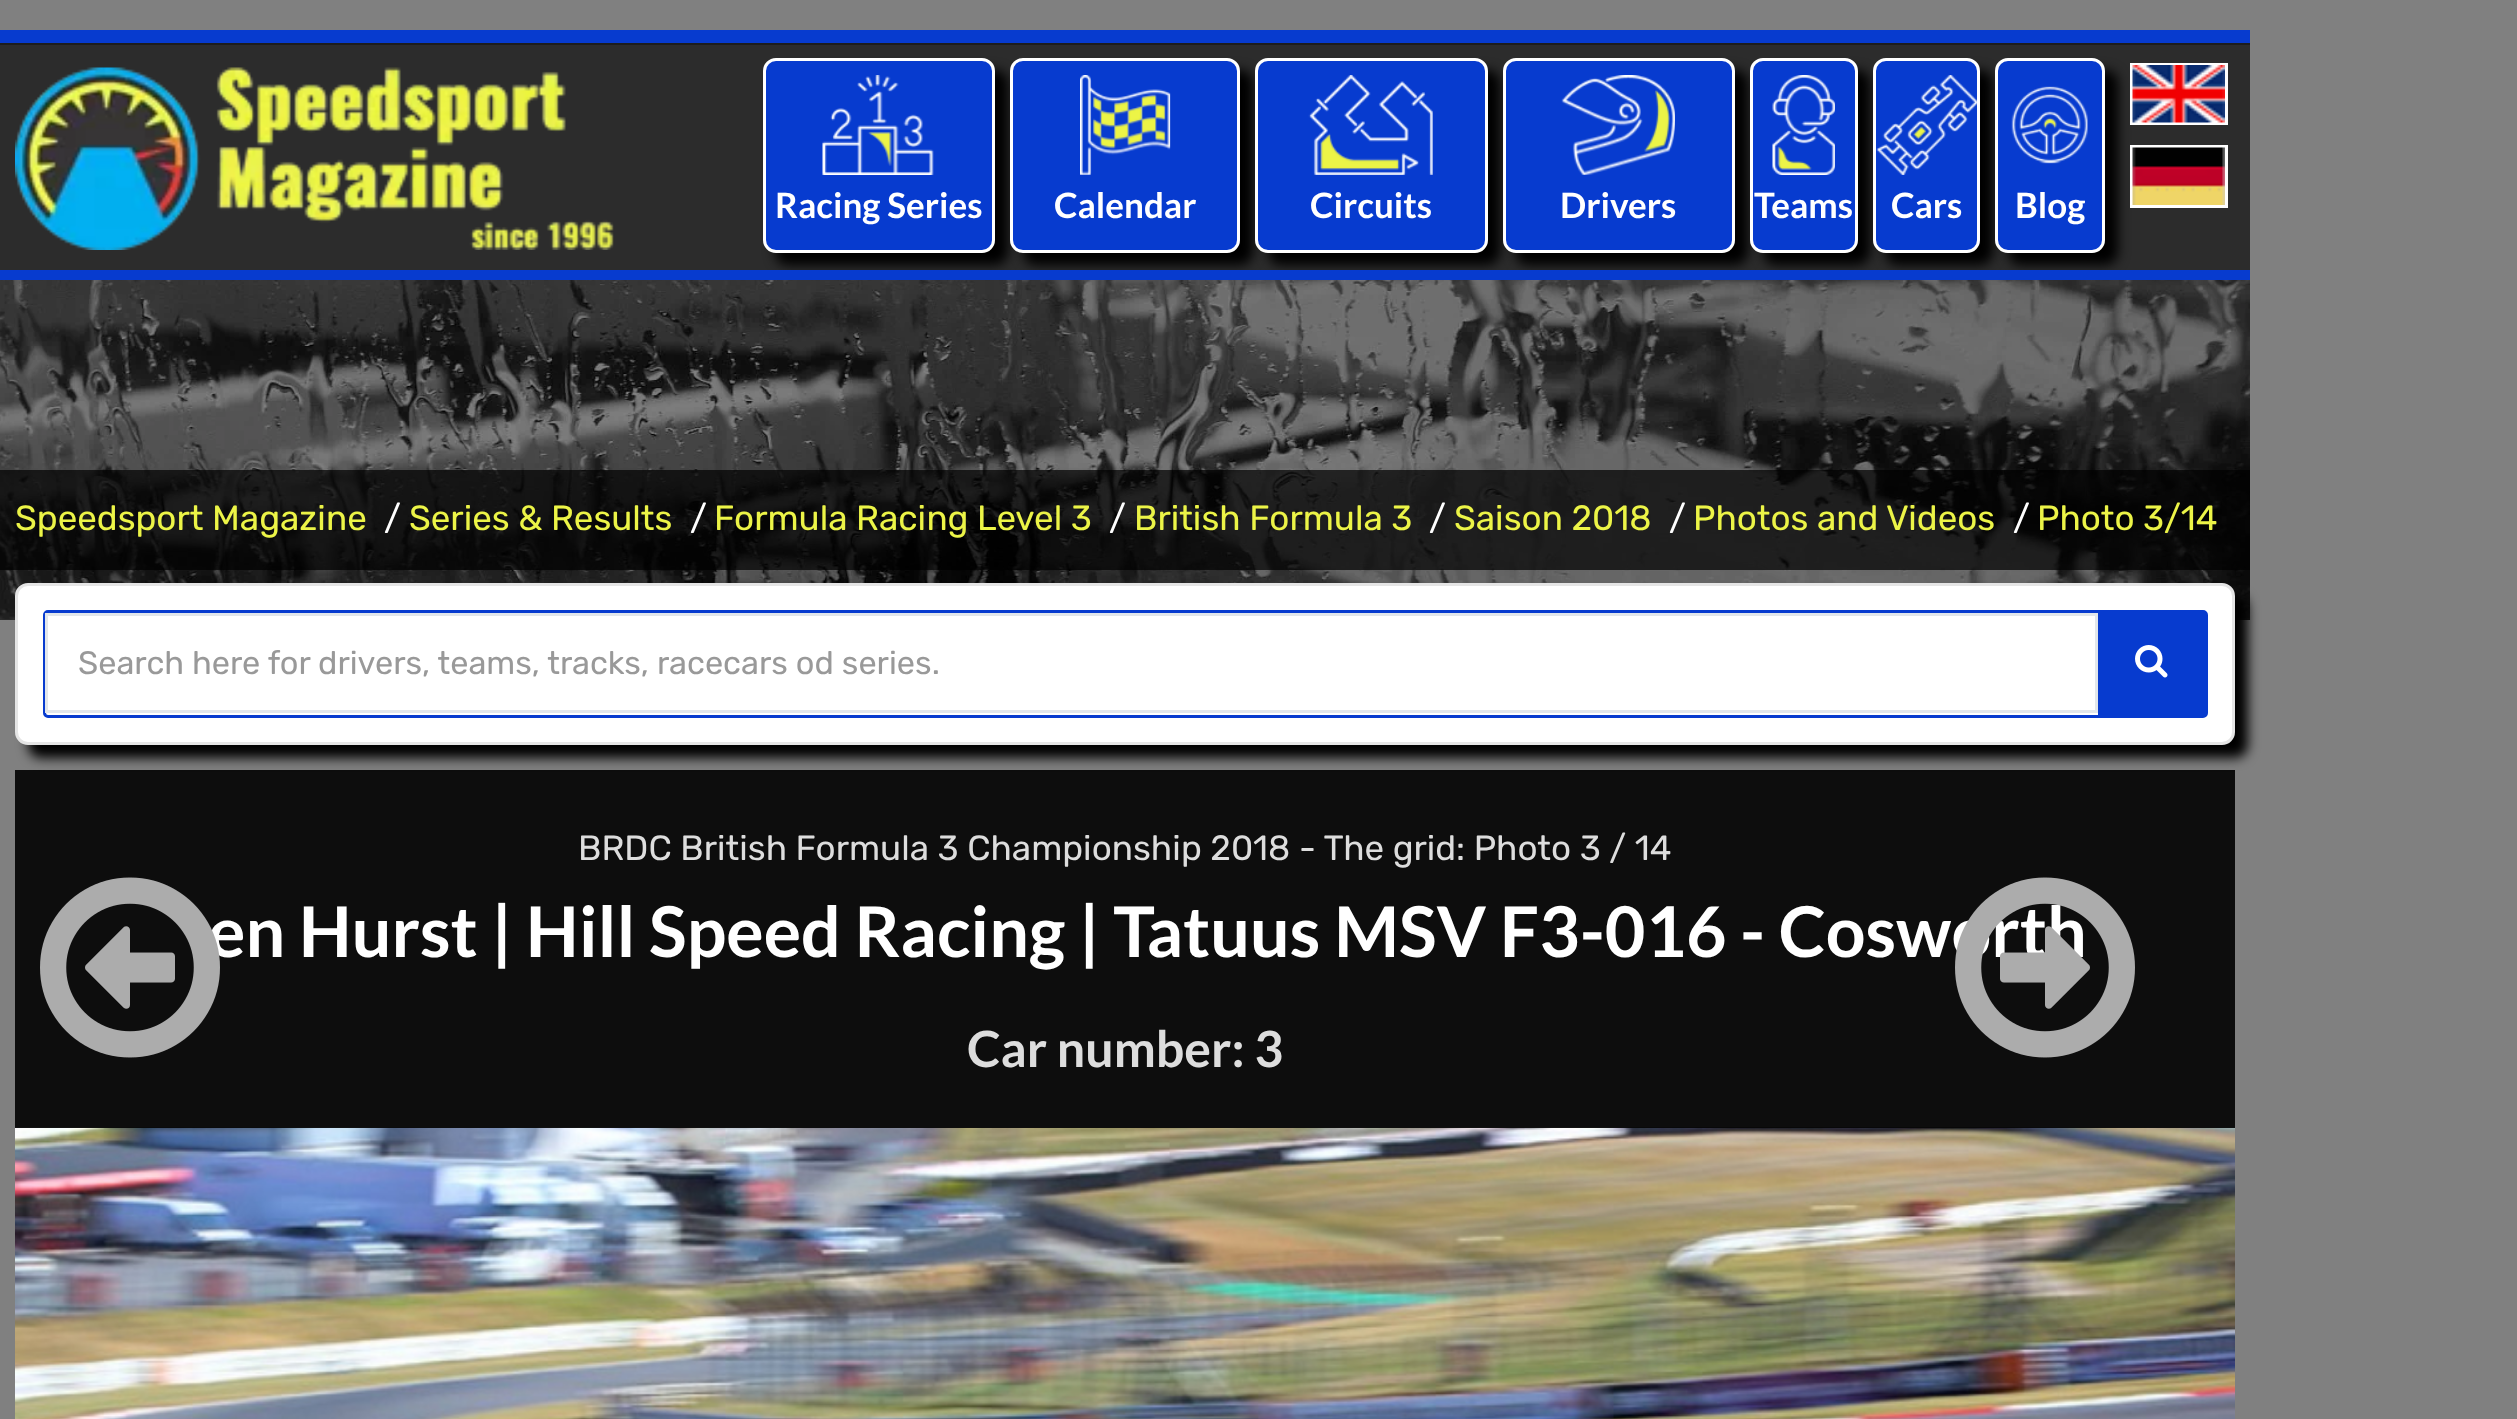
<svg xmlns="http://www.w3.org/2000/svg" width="2517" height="1419">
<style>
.a{font:bold 35px Lato;fill:#fff}
.b{font:300 35px Rubik;fill:#ecf447}
.c{font:300 35px Rubik;fill:#fff}
.d{font:300 32.5px Rubik;fill:#999}
.e{font:300 35px Rubik;fill:#ddd}
.f{font:bold 70px Lato;fill:#fff}
.g{font:bold 50px Lato;fill:#ddd}
</style>
<rect width="100%" height="100%" fill="#808080"/>
<path fill="#073bcf" d="M0 30h2250v13H0z"/>
<path fill="#1d1d1d" d="M0 43h2250v2H0z"/>
<path fill="#2c2c2c" d="M0 45h2250v225H0z"/>
<image href="1.png" x="15" y="67" width="599" height="183"/>
<image href="11.png" x="0" y="280" width="2250" height="340"/>
<rect fill="#000" filter="blur(6px)" x="775" y="70" width="233" height="195" rx="13"/>
<rect fill="#073bcf" stroke="#fff" stroke-width="3" x="764.5" y="59.5" width="229" height="192" rx="11.5"/>
<image href="2.png" x="822" y="75" width="112" height="100"/>
<rect fill="#000" filter="blur(6px)" x="1023" y="70" width="230" height="195" rx="13"/>
<rect fill="#073bcf" stroke="#fff" stroke-width="3" x="1011.5" y="59.5" width="227" height="192" rx="11.5"/>
<image href="3.png" x="1080" y="75" width="91" height="100"/>
<rect fill="#000" filter="blur(6px)" x="1268" y="70" width="232" height="195" rx="13"/>
<rect fill="#073bcf" stroke="#fff" stroke-width="3" x="1256.5" y="59.5" width="230" height="192" rx="11.5"/>
<image href="4.png" x="1308" y="75" width="125" height="100"/>
<rect fill="#000" filter="blur(6px)" x="1515" y="70" width="233" height="195" rx="13"/>
<rect fill="#073bcf" stroke="#fff" stroke-width="3" x="1504.5" y="59.5" width="229" height="192" rx="11.5"/>
<image href="5.png" x="1561" y="75" width="114" height="100"/>
<rect fill="#000" filter="blur(6px)" x="1763" y="70" width="107" height="195" rx="13"/>
<rect fill="#073bcf" stroke="#fff" stroke-width="3" x="1751.5" y="59.5" width="105" height="192" rx="11.5"/>
<image href="6.png" x="1772" y="75" width="63" height="100"/>
<rect fill="#000" filter="blur(6px)" x="1885" y="70" width="108" height="195" rx="13"/>
<rect fill="#073bcf" stroke="#fff" stroke-width="3" x="1874.5" y="59.5" width="104" height="192" rx="11.5"/>
<image href="7.png" x="1876" y="75" width="101" height="100"/>
<rect fill="#000" filter="blur(6px)" x="2008" y="70" width="110" height="195" rx="13"/>
<rect fill="#073bcf" stroke="#fff" stroke-width="3" x="1996.5" y="59.5" width="107" height="192" rx="11.5"/>
<image href="8.png" x="2011" y="86" width="77" height="78"/>
<path fill="none" stroke="#fff" stroke-width="3" d="M2131.5 64.5h95v59H2131.5z"/>
<image href="9.png" x="2132" y="65" width="93" height="58"/>
<path fill="none" stroke="#fff" stroke-width="3" d="M2131.5 146.5h95v60H2131.5z"/>
<image href="10.png" x="2132" y="147" width="93" height="58"/>
<path fill="#073bcf" d="M0 270h2250v10H0z"/>
<path fill="#000000b3" d="M0 470h2250v100H0z"/>
<rect fill="#000" filter="blur(6px)" x="28" y="595" width="2220" height="163" rx="13"/>
<rect fill="#fff" stroke="#e5e5e5" stroke-width="3" x="16.5" y="584.5" width="2217" height="159" rx="11.5"/>
<rect fill="none" stroke="#073bcf" stroke-width="3" x="44.5" y="611.5" width="2162" height="105" rx="3.5"/>
<path fill="none" stroke="#e1e6eb" stroke-width="3" d="M46.5 614.5h2050v97H46.5z"/>
<path fill="#073bcf" d="M2098 613h107v102H2098z"/>
<image href="12.png" x="2135" y="645" width="33" height="33"/>
<image href="15.png" x="15" y="1127" width="2220" height="292"/>
<path fill="#000000e6" d="M15 770h2220v358H15z"/>
<text class="a" x="775" y="218">Racing Series</text>
<text class="a" x="1054" y="218">Calendar</text>
<text class="a" x="1310" y="218">Circuits</text>
<text class="a" x="1560" y="218">Drivers</text>
<text class="a" x="1754" y="218">Teams</text>
<text class="a" x="1891" y="218">Cars</text>
<text class="a" x="2015" y="218">Blog</text>
<text class="b" x="15" y="530">Speedsport Magazine</text>
<text class="c" x="384" y="530">/</text>
<text class="b" x="409" y="530">Series &amp; Results</text>
<text class="c" x="690" y="530">/</text>
<text class="b" x="714" y="530">Formula Racing Level 3</text>
<text class="c" x="1109" y="530">/</text>
<text class="b" x="1134" y="530">British Formula 3</text>
<text class="c" x="1429" y="530">/</text>
<text class="b" x="1454" y="530">Saison 2018</text>
<text class="c" x="1669" y="530">/</text>
<text class="b" x="1693" y="530">Photos and Videos</text>
<text class="c" x="2013" y="530">/</text>
<text class="b" x="2037" y="530">Photo 3/14</text>
<text class="d" x="78" y="674">Search here for drivers, teams, tracks, racecars od series.</text>
<text class="e" x="578" y="860">BRDC British Formula 3 Championship 2018 - The grid: Photo 3 / 14</text>
<text class="f" x="208" y="957">en Hurst | Hill Speed Racing | Tatuus MSV F3-016 - Cosworth</text>
<image href="14.png" x="1955" y="877" width="180" height="181"/>
<image href="13.png" x="40" y="877" width="180" height="181"/>
<text class="g" x="967" y="1067">Car number: 3</text>
</svg>
